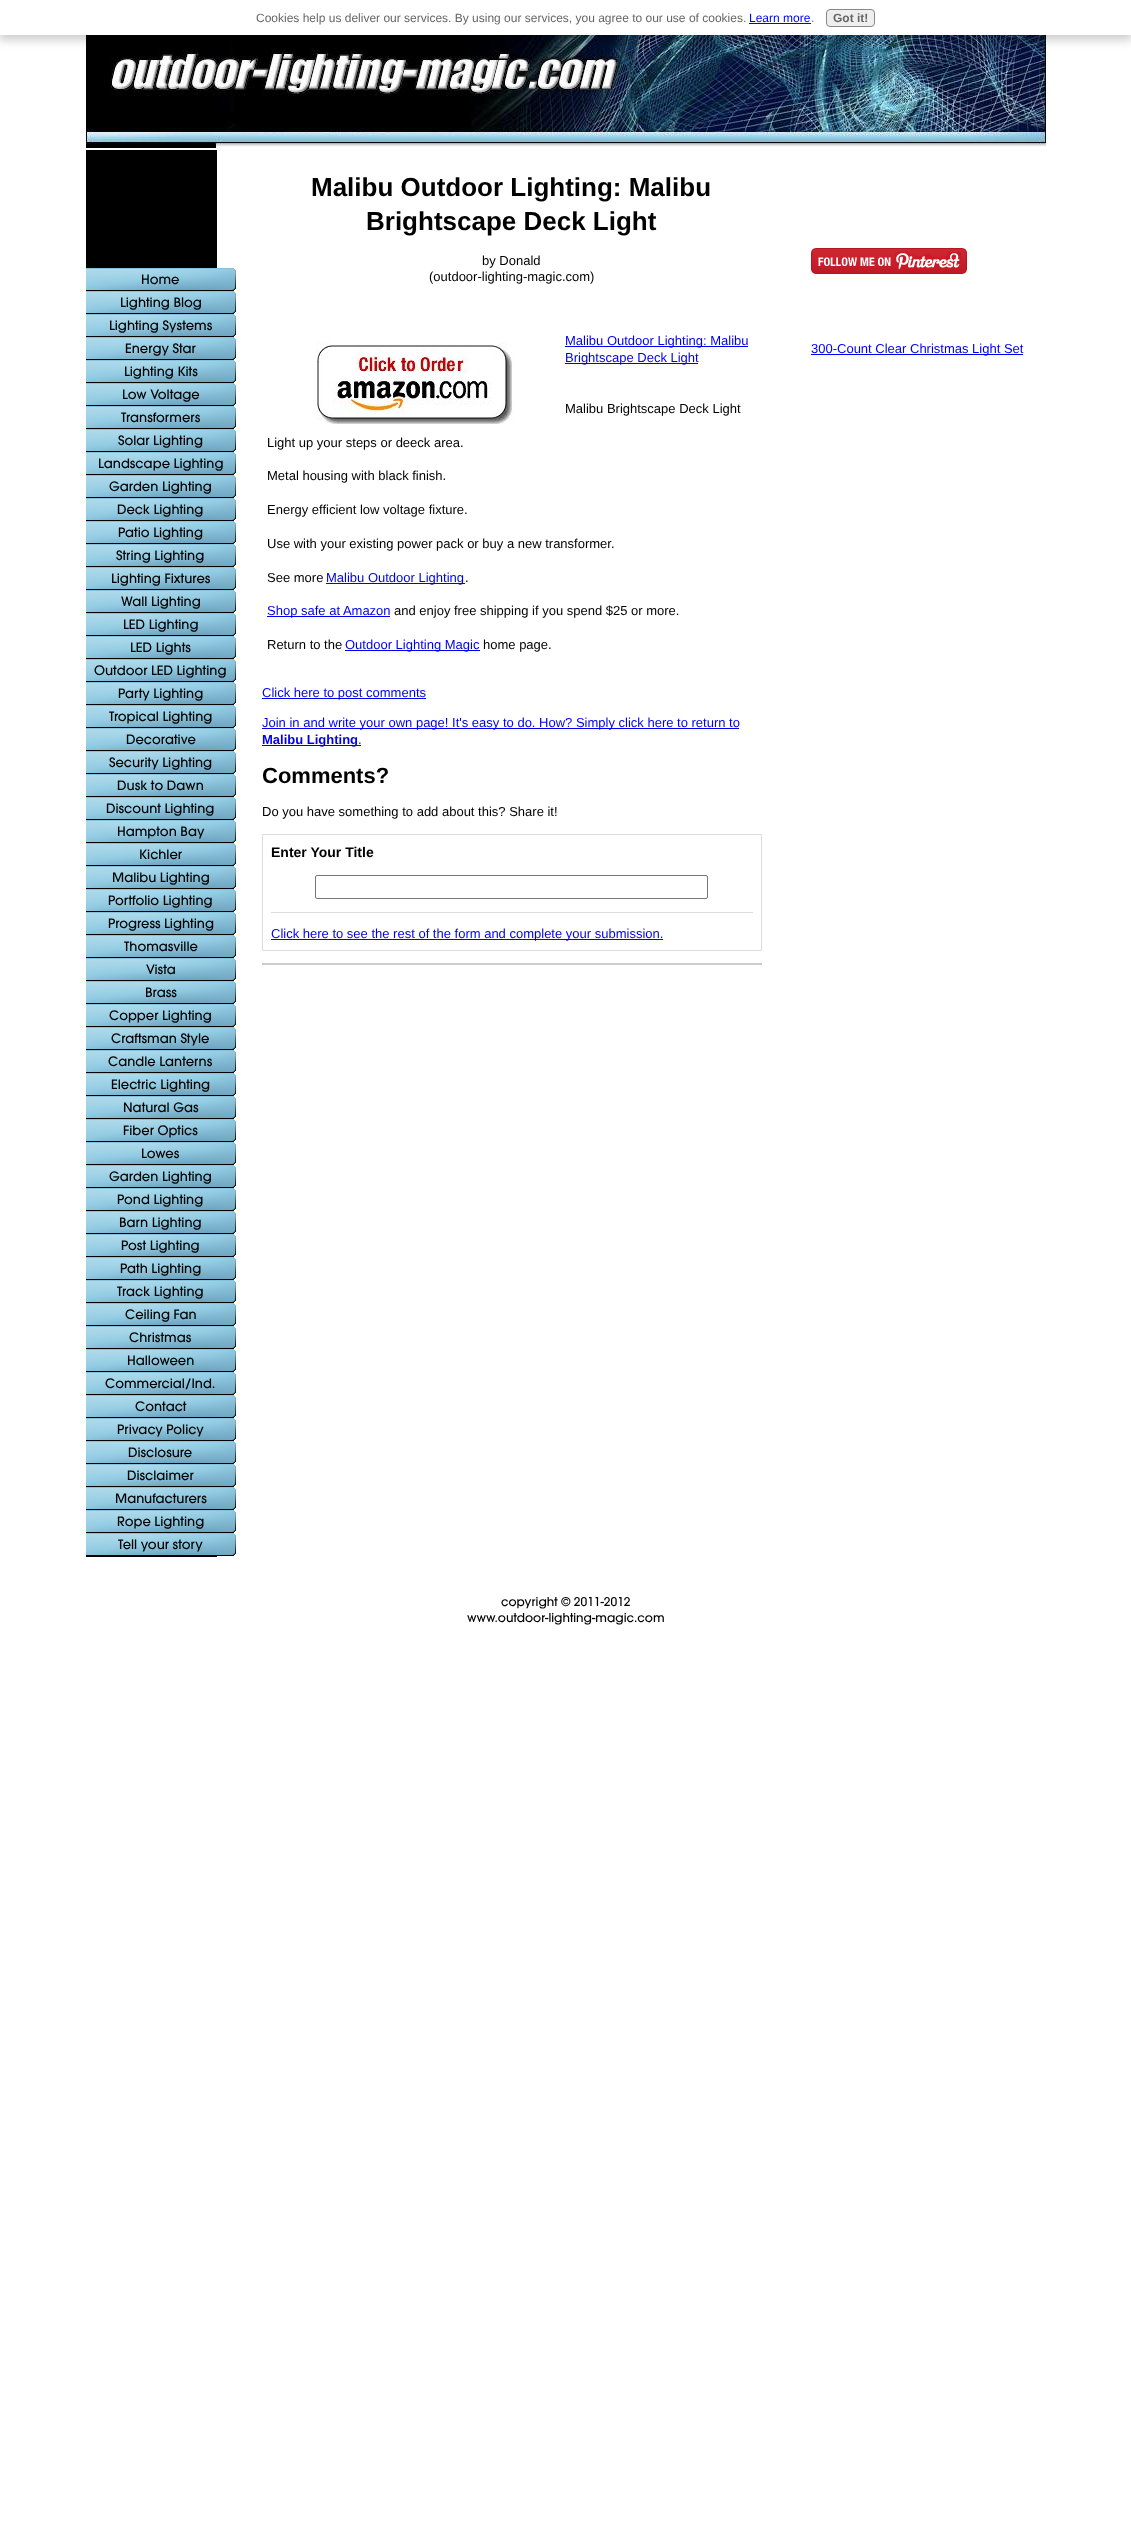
<svg xmlns="http://www.w3.org/2000/svg" width="1131" height="2538">
<style>
.a{font:12px Liberation Sans;fill:#666}
.b{font:12px Liberation Sans;fill:#00f}
.c{font:bold 12px Liberation Sans;fill:#666}
.d{font:13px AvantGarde;fill:#000}
.e{font:bold 26px Liberation Sans;fill:#000}
.f{font:13px Liberation Sans;fill:#000}
.g{font:13px Liberation Sans;fill:#00e}
.h{font:bold 13px Liberation Sans;fill:#00e}
.i{font:bold 22px Liberation Sans;fill:#000}
.j{font:bold 14px Liberation Sans;fill:#000}
.k{font:12px AvantGarde;fill:#000}
</style>
<rect width="100%" height="100%" fill="#fff"/>
<image href="1.png" x="86" y="35" width="960" height="113"/>
<path fill="#00000033" filter="blur(5px)" d="M-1 3h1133v37H-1z"/>
<path fill="#fff" d="M0 0h1131v35H0z"/>
<path fill="#00f" d="M749 23h62v1H749z"/>
<rect fill="#eee" stroke="#888" x="826.5" y="9.5" width="48" height="17" rx="3.5"/>
<path fill="#000" d="M86 150h131v1407H86z"/>
<image href="2.png" x="86" y="268" width="150" height="23"/>
<image href="2.png" x="86" y="291" width="150" height="23"/>
<image href="2.png" x="86" y="314" width="150" height="23"/>
<image href="2.png" x="86" y="337" width="150" height="23"/>
<image href="2.png" x="86" y="360" width="150" height="23"/>
<image href="2.png" x="86" y="383" width="150" height="23"/>
<image href="2.png" x="86" y="406" width="150" height="23"/>
<image href="2.png" x="86" y="429" width="150" height="23"/>
<image href="2.png" x="86" y="452" width="150" height="23"/>
<image href="2.png" x="86" y="475" width="150" height="23"/>
<image href="2.png" x="86" y="498" width="150" height="23"/>
<image href="2.png" x="86" y="521" width="150" height="23"/>
<image href="2.png" x="86" y="544" width="150" height="23"/>
<image href="2.png" x="86" y="567" width="150" height="23"/>
<image href="2.png" x="86" y="590" width="150" height="23"/>
<image href="2.png" x="86" y="613" width="150" height="23"/>
<image href="2.png" x="86" y="636" width="150" height="23"/>
<image href="2.png" x="86" y="659" width="150" height="23"/>
<image href="2.png" x="86" y="682" width="150" height="23"/>
<image href="2.png" x="86" y="705" width="150" height="23"/>
<image href="2.png" x="86" y="728" width="150" height="23"/>
<image href="2.png" x="86" y="751" width="150" height="23"/>
<image href="2.png" x="86" y="774" width="150" height="23"/>
<image href="2.png" x="86" y="797" width="150" height="23"/>
<image href="2.png" x="86" y="820" width="150" height="23"/>
<image href="2.png" x="86" y="843" width="150" height="23"/>
<image href="2.png" x="86" y="866" width="150" height="23"/>
<image href="2.png" x="86" y="889" width="150" height="23"/>
<image href="2.png" x="86" y="912" width="150" height="23"/>
<image href="2.png" x="86" y="935" width="150" height="23"/>
<image href="2.png" x="86" y="958" width="150" height="23"/>
<image href="2.png" x="86" y="981" width="150" height="23"/>
<image href="2.png" x="86" y="1004" width="150" height="23"/>
<image href="2.png" x="86" y="1027" width="150" height="23"/>
<image href="2.png" x="86" y="1050" width="150" height="23"/>
<image href="2.png" x="86" y="1073" width="150" height="23"/>
<image href="2.png" x="86" y="1096" width="150" height="23"/>
<image href="2.png" x="86" y="1119" width="150" height="23"/>
<image href="2.png" x="86" y="1142" width="150" height="23"/>
<image href="2.png" x="86" y="1165" width="150" height="23"/>
<image href="2.png" x="86" y="1188" width="150" height="23"/>
<image href="2.png" x="86" y="1211" width="150" height="23"/>
<image href="2.png" x="86" y="1234" width="150" height="23"/>
<image href="2.png" x="86" y="1257" width="150" height="23"/>
<image href="2.png" x="86" y="1280" width="150" height="23"/>
<image href="2.png" x="86" y="1303" width="150" height="23"/>
<image href="2.png" x="86" y="1326" width="150" height="23"/>
<image href="2.png" x="86" y="1349" width="150" height="23"/>
<image href="2.png" x="86" y="1372" width="150" height="23"/>
<image href="2.png" x="86" y="1395" width="150" height="23"/>
<image href="2.png" x="86" y="1418" width="150" height="23"/>
<image href="2.png" x="86" y="1441" width="150" height="23"/>
<image href="2.png" x="86" y="1464" width="150" height="23"/>
<image href="2.png" x="86" y="1487" width="150" height="23"/>
<image href="2.png" x="86" y="1510" width="150" height="23"/>
<image href="2.png" x="86" y="1533" width="150" height="23"/>
<image href="3.png" x="316" y="341" width="198" height="84"/>
<path fill="#00e" d="M565 346h183v1H565z"/>
<path fill="#00e" d="M565 363h133v1H565z"/>
<path fill="#00e" d="M326 583h139v1H326z"/>
<path fill="#00e" d="M267 616h123v1H267z"/>
<path fill="#00e" d="M345 650h135v1H345z"/>
<path fill="#00e" d="M262 698h164v1H262z"/>
<path fill="#00e" d="M262 728h477v1H262z"/>
<path fill="#00e" d="M262 745h99v1H262z"/>
<path fill="none" stroke="#ddd" d="M262.5 834.5h499v116H262.5z"/>
<rect fill="none" stroke="#767676" x="315.5" y="875.5" width="392" height="23" rx="1.5"/>
<path fill="#ddd" d="M271 912h482v1H271z"/>
<path fill="#00e" d="M271 939h392v1H271z"/>
<path fill="#ccc" d="M262 963h500v2H262z"/>
<image href="4.png" x="811" y="248" width="156" height="26"/>
<path fill="#00e" d="M811 354h212v1H811z"/>
<text class="a" x="256" y="22">Cookies help us deliver our services. By using our services, you agree to our use of cookies.</text>
<text class="b" x="749" y="22">Learn more</text>
<text class="a" x="811" y="22">.</text>
<text class="c" x="833" y="22">Got it!</text>
<text class="d" x="141" y="284">Home</text>
<text class="d" x="120" y="307">Lighting Blog</text>
<text class="d" x="109" y="330">Lighting Systems</text>
<text class="d" x="125" y="353">Energy Star</text>
<text class="d" x="124" y="376">Lighting Kits</text>
<text class="d" x="122" y="399">Low Voltage</text>
<text class="d" x="121" y="422">Transformers</text>
<text class="d" x="118" y="445">Solar Lighting</text>
<text class="d" x="98" y="468">Landscape Lighting</text>
<text class="d" x="109" y="491">Garden Lighting</text>
<text class="d" x="117" y="514">Deck Lighting</text>
<text class="d" x="118" y="537">Patio Lighting</text>
<text class="d" x="116" y="560">String Lighting</text>
<text class="d" x="111" y="583">Lighting Fixtures</text>
<text class="d" x="121" y="606">Wall Lighting</text>
<text class="d" x="123" y="629">LED Lighting</text>
<text class="d" x="130" y="652">LED Lights</text>
<text class="d" x="94" y="675">Outdoor LED Lighting</text>
<text class="d" x="118" y="698">Party Lighting</text>
<text class="d" x="109" y="721">Tropical Lighting</text>
<text class="d" x="126" y="744">Decorative</text>
<text class="d" x="109" y="767">Security Lighting</text>
<text class="d" x="117" y="790">Dusk to Dawn</text>
<text class="d" x="106" y="813">Discount Lighting</text>
<text class="d" x="117" y="836">Hampton Bay</text>
<text class="d" x="139" y="859">Kichler</text>
<text class="d" x="112" y="882">Malibu Lighting</text>
<text class="d" x="108" y="905">Portfolio Lighting</text>
<text class="d" x="108" y="928">Progress Lighting</text>
<text class="d" x="124" y="951">Thomasville</text>
<text class="d" x="146" y="974">Vista</text>
<text class="d" x="145" y="997">Brass</text>
<text class="d" x="109" y="1020">Copper Lighting</text>
<text class="d" x="111" y="1043">Craftsman Style</text>
<text class="d" x="108" y="1066">Candle Lanterns</text>
<text class="d" x="111" y="1089">Electric Lighting</text>
<text class="d" x="123" y="1112">Natural Gas</text>
<text class="d" x="123" y="1135">Fiber Optics</text>
<text class="d" x="141" y="1158">Lowes</text>
<text class="d" x="109" y="1181">Garden Lighting</text>
<text class="d" x="117" y="1204">Pond Lighting</text>
<text class="d" x="119" y="1227">Barn Lighting</text>
<text class="d" x="121" y="1250">Post Lighting</text>
<text class="d" x="120" y="1273">Path Lighting</text>
<text class="d" x="117" y="1296">Track Lighting</text>
<text class="d" x="125" y="1319">Ceiling Fan</text>
<text class="d" x="129" y="1342">Christmas</text>
<text class="d" x="127" y="1365">Halloween</text>
<text class="d" x="105" y="1388">Commercial/Ind.</text>
<text class="d" x="135" y="1411">Contact</text>
<text class="d" x="117" y="1434">Privacy Policy</text>
<text class="d" x="128" y="1457">Disclosure</text>
<text class="d" x="127" y="1480">Disclaimer</text>
<text class="d" x="115" y="1503">Manufacturers</text>
<text class="d" x="117" y="1526">Rope Lighting</text>
<text class="d" x="118" y="1549">Tell your story</text>
<text class="e" x="311" y="196">Malibu Outdoor Lighting: Malibu</text>
<text class="e" x="366" y="230">Brightscape Deck Light</text>
<text class="f" x="482" y="265">by Donald</text>
<text class="f" x="429" y="281">(outdoor-lighting-magic.com)</text>
<text class="g" x="565" y="345">Malibu Outdoor Lighting: Malibu</text>
<text class="g" x="565" y="362">Brightscape Deck Light</text>
<text class="f" x="565" y="413">Malibu Brightscape Deck Light</text>
<text class="f" x="267" y="447">Light up your steps or deeck area.</text>
<text class="f" x="267" y="480">Metal housing with black finish.</text>
<text class="f" x="267" y="514">Energy efficient low voltage fixture.</text>
<text class="f" x="267" y="548">Use with your existing power pack or buy a new transformer.</text>
<text class="f" x="267" y="582">See more</text>
<text class="g" x="326" y="582">Malibu Outdoor Lighting</text>
<text class="f" x="465" y="582">.</text>
<text class="g" x="267" y="615">Shop safe at Amazon</text>
<text class="f" x="394" y="615">and enjoy free shipping if you spend $25 or more.</text>
<text class="f" x="267" y="649">Return to the</text>
<text class="g" x="345" y="649">Outdoor Lighting Magic</text>
<text class="f" x="483" y="649">home page.</text>
<text class="g" x="262" y="697">Click here to post comments</text>
<text class="g" x="262" y="727">Join in and write your own page! It's easy to do. How? Simply click here to return to</text>
<text class="h" x="262" y="744">Malibu Lighting</text>
<text class="g" x="358" y="744">.</text>
<text class="i" x="262" y="783">Comments?</text>
<text class="f" x="262" y="816">Do you have something to add about this? Share it!</text>
<text class="j" x="271" y="857">Enter Your Title</text>
<text class="g" x="271" y="938">Click here to see the rest of the form and complete your submission.</text>
<text class="g" x="811" y="353">300-Count Clear Christmas Light Set</text>
<text class="k" x="501" y="1606">copyright © 2011-2012</text>
<text class="k" x="467" y="1622">www.outdoor-lighting-magic.com</text>
</svg>
